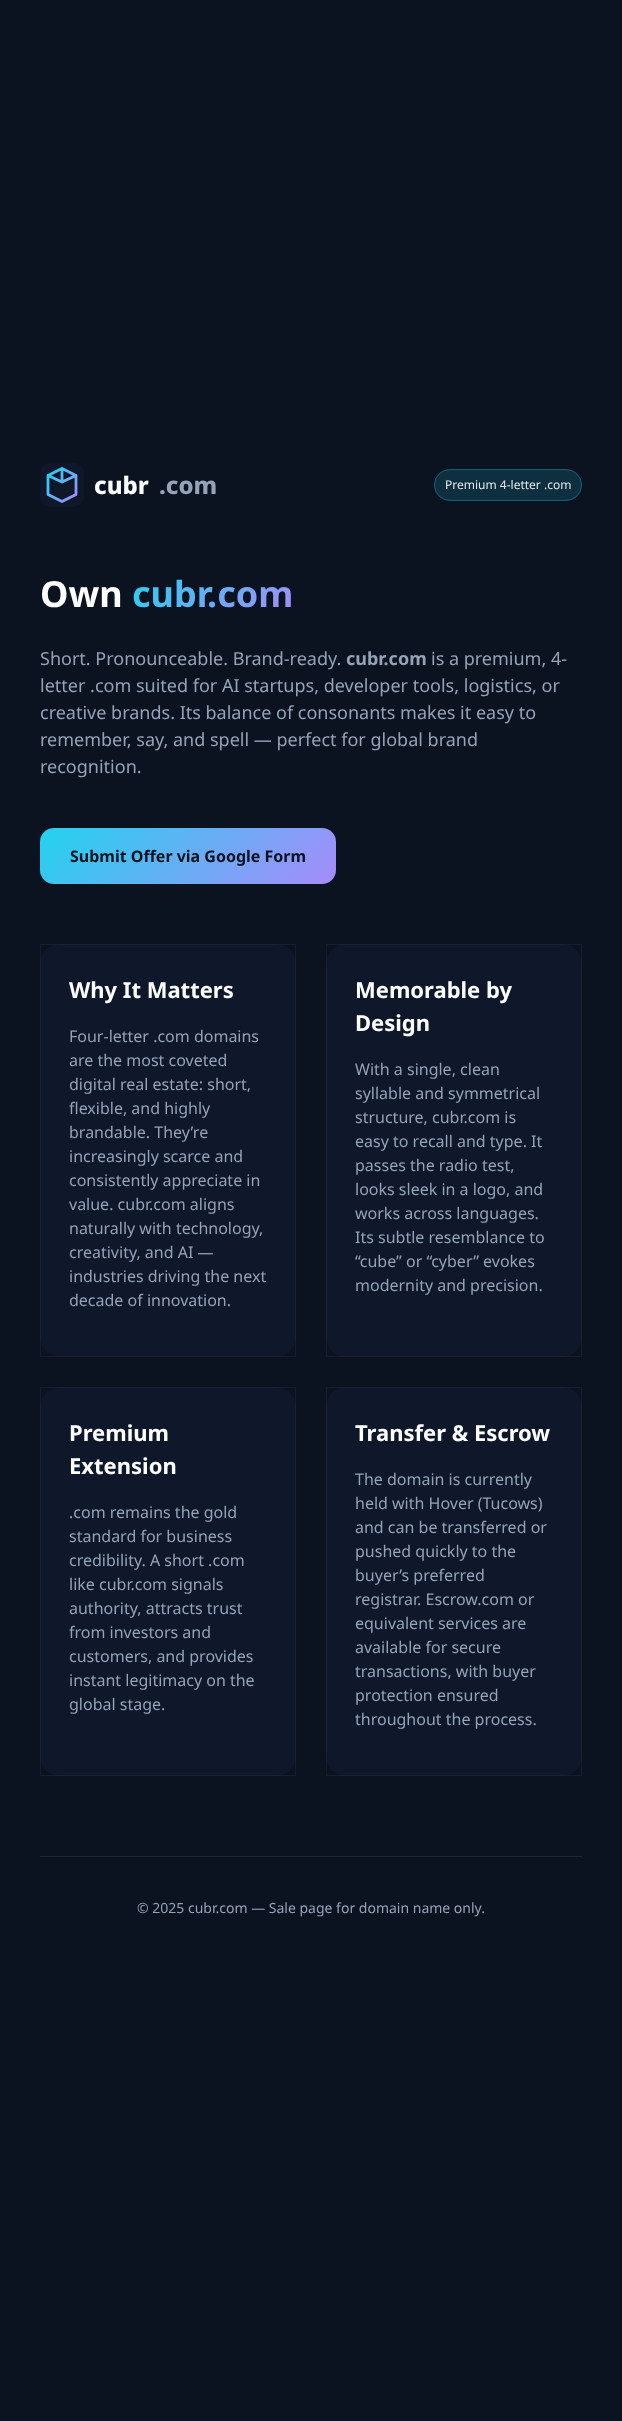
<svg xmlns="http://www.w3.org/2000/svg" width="622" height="2421">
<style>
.a{font:800 24px Noto Sans;fill:#fff}
.b{font:800 24px Noto Sans;fill:#94a3b8}
.c{font:12px Noto Sans;fill:#e5e7eb}
.d{font:bold 36px Noto Sans;fill:#fff}
.e{font:bold 36px Noto Sans;fill:url(#g1)}
.f{font:18px Noto Sans;fill:#94a3b8}
.g{font:bold 18px Noto Sans;fill:#94a3b8}
.h{font:bold 16px Noto Sans;fill:#0b1220}
.i{font:bold 22px Noto Sans;fill:#fff}
.j{font:16px Noto Sans;fill:#94a3b8}
.k{font:14px Noto Sans;fill:#94a3b8}
</style>
<defs>
<linearGradient id="g1" gradientUnits="userSpaceOnUse" x1="160" y1="541" x2="265" y2="646"><stop offset="0" stop-color="#22d3ee"/><stop offset="1" stop-color="#a78bfa"/></linearGradient>
<linearGradient id="g2" gradientUnits="userSpaceOnUse" x1="48" y1="469" x2="81" y2="496"><stop offset="0" stop-color="#22d3ee"/><stop offset="1" stop-color="#a78bfa"/></linearGradient>
<linearGradient id="g3" gradientUnits="userSpaceOnUse" x1="100" y1="768" x2="276" y2="944"><stop offset="0" stop-color="#22d3ee"/><stop offset="1" stop-color="#a78bfa"/></linearGradient>
</defs>
<rect width="100%" height="100%" fill="#0b1220"/>
<rect fill="#0f172a" x="40" y="463" width="44" height="44" rx="10"/>
<path fill="none" stroke="url(#g2)" stroke-width="2.8" stroke-linecap="round" stroke-linejoin="round" d="M62 468.5l-14 7v19l14 7l14-7v-19zm0 0v13.5l14-6.5m-28 0l14 6.5"/>
<rect fill="#0e2f3f" x="434" y="469" width="148" height="32" rx="16"/>
<rect fill="none" stroke="#22d3ee4d" x="434.5" y="469.5" width="147" height="31" rx="15.5"/>
<rect fill="url(#g3)" x="40" y="828" width="296" height="56" rx="14"/>
<rect fill="#0f172a" x="40" y="944" width="256" height="413" rx="20"/>
<path fill="none" stroke="#ffffff0d" d="M40.5 944.5h255v412H40.5z"/>
<rect fill="#0f172a" x="326" y="944" width="256" height="413" rx="20"/>
<path fill="none" stroke="#ffffff0d" d="M326.5 944.5h255v412H326.5z"/>
<rect fill="#0f172a" x="40" y="1387" width="256" height="389" rx="20"/>
<path fill="none" stroke="#ffffff0d" d="M40.5 1387.5h255v388H40.5z"/>
<rect fill="#0f172a" x="326" y="1387" width="256" height="389" rx="20"/>
<path fill="none" stroke="#ffffff0d" d="M326.5 1387.5h255v388H326.5z"/>
<path fill="#1f2532" d="M40 1856h542v1H40z"/>
<text class="a" x="94" y="494">cubr</text>
<text class="b" x="159" y="494">.com</text>
<text class="c" x="445" y="489">Premium 4-letter .com</text>
<text class="d" x="40" y="607">Own</text>
<text class="e" x="132" y="607">cubr.com</text>
<text class="f" x="40" y="665">Short. Pronounceable. Brand-ready.</text>
<text class="g" x="346" y="665">cubr.com</text>
<text class="f" x="431" y="665">is a premium, 4-</text>
<text class="f" x="40" y="692">letter .com suited for AI startups, developer tools, logistics, or</text>
<text class="f" x="40" y="719">creative brands. Its balance of consonants makes it easy to</text>
<text class="f" x="40" y="746">remember, say, and spell — perfect for global brand</text>
<text class="f" x="40" y="773">recognition.</text>
<text class="h" x="70" y="862">Submit Offer via Google Form</text>
<text class="i" x="69" y="998">Why It Matters</text>
<text class="j" x="69" y="1042">Four-letter .com domains</text>
<text class="j" x="69" y="1066">are the most coveted</text>
<text class="j" x="69" y="1090">digital real estate: short,</text>
<text class="j" x="69" y="1114">flexible, and highly</text>
<text class="j" x="69" y="1138">brandable. They’re</text>
<text class="j" x="69" y="1162">increasingly scarce and</text>
<text class="j" x="69" y="1186">consistently appreciate in</text>
<text class="j" x="69" y="1210">value. cubr.com aligns</text>
<text class="j" x="69" y="1234">naturally with technology,</text>
<text class="j" x="69" y="1258">creativity, and AI —</text>
<text class="j" x="69" y="1282">industries driving the next</text>
<text class="j" x="69" y="1306">decade of innovation.</text>
<text class="i" x="355" y="998">Memorable by</text>
<text class="i" x="355" y="1031">Design</text>
<text class="j" x="355" y="1075">With a single, clean</text>
<text class="j" x="355" y="1099">syllable and symmetrical</text>
<text class="j" x="355" y="1123">structure, cubr.com is</text>
<text class="j" x="355" y="1147">easy to recall and type. It</text>
<text class="j" x="355" y="1171">passes the radio test,</text>
<text class="j" x="355" y="1195">looks sleek in a logo, and</text>
<text class="j" x="355" y="1219">works across languages.</text>
<text class="j" x="355" y="1243">Its subtle resemblance to</text>
<text class="j" x="355" y="1267">“cube” or “cyber” evokes</text>
<text class="j" x="355" y="1291">modernity and precision.</text>
<text class="i" x="69" y="1441">Premium</text>
<text class="i" x="69" y="1474">Extension</text>
<text class="j" x="69" y="1518">.com remains the gold</text>
<text class="j" x="69" y="1542">standard for business</text>
<text class="j" x="69" y="1566">credibility. A short .com</text>
<text class="j" x="69" y="1590">like cubr.com signals</text>
<text class="j" x="69" y="1614">authority, attracts trust</text>
<text class="j" x="69" y="1638">from investors and</text>
<text class="j" x="69" y="1662">customers, and provides</text>
<text class="j" x="69" y="1686">instant legitimacy on the</text>
<text class="j" x="69" y="1710">global stage.</text>
<text class="i" x="355" y="1441">Transfer &amp; Escrow</text>
<text class="j" x="355" y="1485">The domain is currently</text>
<text class="j" x="355" y="1509">held with Hover (Tucows)</text>
<text class="j" x="355" y="1533">and can be transferred or</text>
<text class="j" x="355" y="1557">pushed quickly to the</text>
<text class="j" x="355" y="1581">buyer’s preferred</text>
<text class="j" x="355" y="1605">registrar. Escrow.com or</text>
<text class="j" x="355" y="1629">equivalent services are</text>
<text class="j" x="355" y="1653">available for secure</text>
<text class="j" x="355" y="1677">transactions, with buyer</text>
<text class="j" x="355" y="1701">protection ensured</text>
<text class="j" x="355" y="1725">throughout the process.</text>
<text class="k" x="137" y="1913">© 2025 cubr.com — Sale page for domain name only.</text>
</svg>
